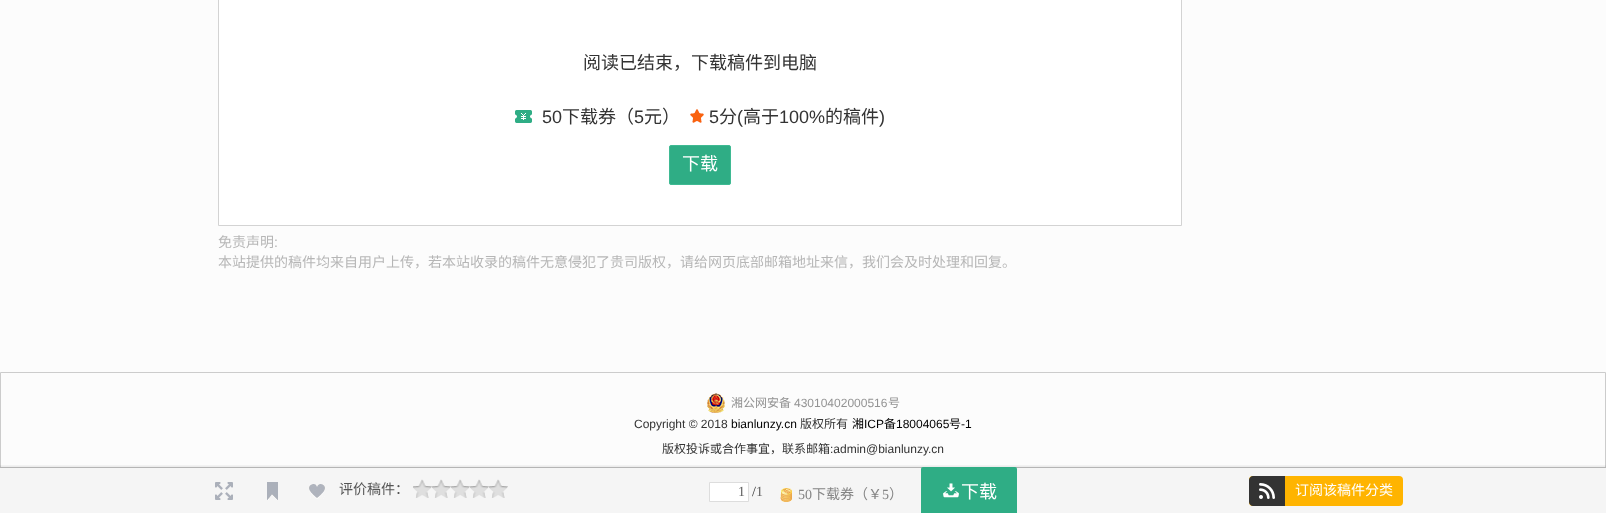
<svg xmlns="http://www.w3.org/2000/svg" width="1606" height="513">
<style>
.a{font:18px Noto Sans CJK SC;fill:#333}
.b{font:18px Liberation Sans;fill:#333}
.c{font:18px Noto Sans CJK SC;fill:#fff}
.d{font:14px Noto Sans CJK SC;fill:#b6b6b6}
.e{font:14px Liberation Sans;fill:#b6b6b6}
.f{font:12px Noto Sans CJK SC;fill:#939393}
.g{font:12px Liberation Sans;fill:#939393}
.h{font:12px Liberation Sans;fill:#333}
.i{font:12px Liberation Sans;fill:#000}
.j{font:12px Noto Sans CJK SC;fill:#333}
.k{font:12px Noto Sans CJK SC;fill:#000}
.l{font:14px Noto Sans CJK SC;fill:#555}
.m{font:14px Liberation Serif;fill:#606060}
.n{font:14px Liberation Serif;fill:#333}
.o{font:14px Liberation Serif;fill:#858585}
.p{font:14px Noto Sans CJK SC;fill:#858585}
.q{font:14px Noto Sans CJK SC;fill:#fff}
</style>
<rect width="100%" height="100%" fill="#fcfcfc"/>
<path fill="#fff" stroke="#d3d3d3" d="M218.5 -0.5h963v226H218.5z"/>
<image href="1.png" x="515" y="110" width="17" height="13"/>
<image href="2.png" x="690" y="109" width="14" height="14"/>
<rect fill="#2fad85" stroke="#3fba93" x="669.5" y="145.5" width="61" height="39" rx="1.5"/>
<path fill="none" stroke="#ccc" d="M0.5 372.5h1605v140H0.5z"/>
<image href="3.png" x="707" y="393" width="18" height="20"/>
<image href="4.png" x="0" y="465" width="1606" height="48"/>
<image href="5.png" x="215" y="482" width="18" height="18"/>
<image href="6.png" x="267" y="482" width="11" height="18"/>
<image href="7.png" x="309" y="484" width="16" height="15"/>
<image href="8.png" x="413" y="479" width="19" height="19"/>
<image href="9.png" x="432" y="479" width="19" height="19"/>
<image href="9.png" x="451" y="479" width="19" height="19"/>
<image href="9.png" x="470" y="479" width="19" height="19"/>
<image href="8.png" x="489" y="479" width="19" height="19"/>
<path fill="#fff" stroke="#ddd" d="M709.5 482.5h39v19H709.5z"/>
<image href="10.png" x="780" y="488" width="12" height="14"/>
<rect fill="#2fad85" x="921" y="467" width="96" height="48" rx="2"/>
<image href="11.png" x="943" y="483" width="16" height="15"/>
<rect fill="#ffb400" x="1249" y="476" width="154" height="30" rx="4"/>
<path fill="#333" d="M1253 476h32v30h-32c-2 0-4-2-4-4v-22c0-2 2-4 4-4z"/>
<image href="12.png" x="1259" y="483" width="16" height="16"/>
<text class="a" x="583" y="69">阅读已结束，下载稿件到电脑</text>
<text class="b" x="542" y="123">50</text>
<text class="a" x="562" y="123">下载券（</text>
<text class="b" x="634" y="123">5</text>
<text class="a" x="644" y="123">元）</text>
<text class="b" x="709" y="123">5</text>
<text class="a" x="719" y="123">分</text>
<text class="b" x="737" y="123">(</text>
<text class="a" x="743" y="123">高于</text>
<text class="b" x="779" y="123">100%</text>
<text class="a" x="825" y="123">的稿件</text>
<text class="b" x="879" y="123">)</text>
<text class="c" x="682" y="170">下载</text>
<text class="d" x="218" y="247">免责声明</text>
<text class="e" x="274" y="247">:</text>
<text class="d" x="218" y="267">本站提供的稿件均来自用户上传，若本站收录的稿件无意侵犯了贵司版权，请给网页底部邮箱地址来信，我们会及时处理和回复。</text>
<text class="f" x="731" y="407">湘公网安备</text>
<text class="g" x="794" y="407">43010402000516</text>
<text class="f" x="888" y="407">号</text>
<text class="h" x="634" y="428">Copyright © 2018</text>
<text class="i" x="731" y="428">bianlunzy.cn</text>
<text class="j" x="800" y="428">版权所有</text>
<text class="k" x="852" y="428">湘</text>
<text class="i" x="864" y="428">ICP</text>
<text class="k" x="884" y="428">备</text>
<text class="i" x="896" y="428">18004065</text>
<text class="k" x="949" y="428">号</text>
<text class="i" x="961" y="428">-1</text>
<text class="j" x="662" y="453">版权投诉或合作事宜，联系邮箱</text>
<text class="h" x="830" y="453">:admin@bianlunzy.cn</text>
<text class="l" x="339" y="494">评价稿件：</text>
<text class="m" x="738" y="496">1</text>
<text class="n" x="752" y="496">/</text>
<text class="m" x="756" y="496">1</text>
<text class="o" x="798" y="499">50</text>
<text class="p" x="812" y="499">下载券（￥</text>
<text class="o" x="882" y="499">5</text>
<text class="p" x="889" y="499">）</text>
<text class="c" x="961" y="498">下载</text>
<text class="q" x="1295" y="495">订阅该稿件分类</text>
</svg>
